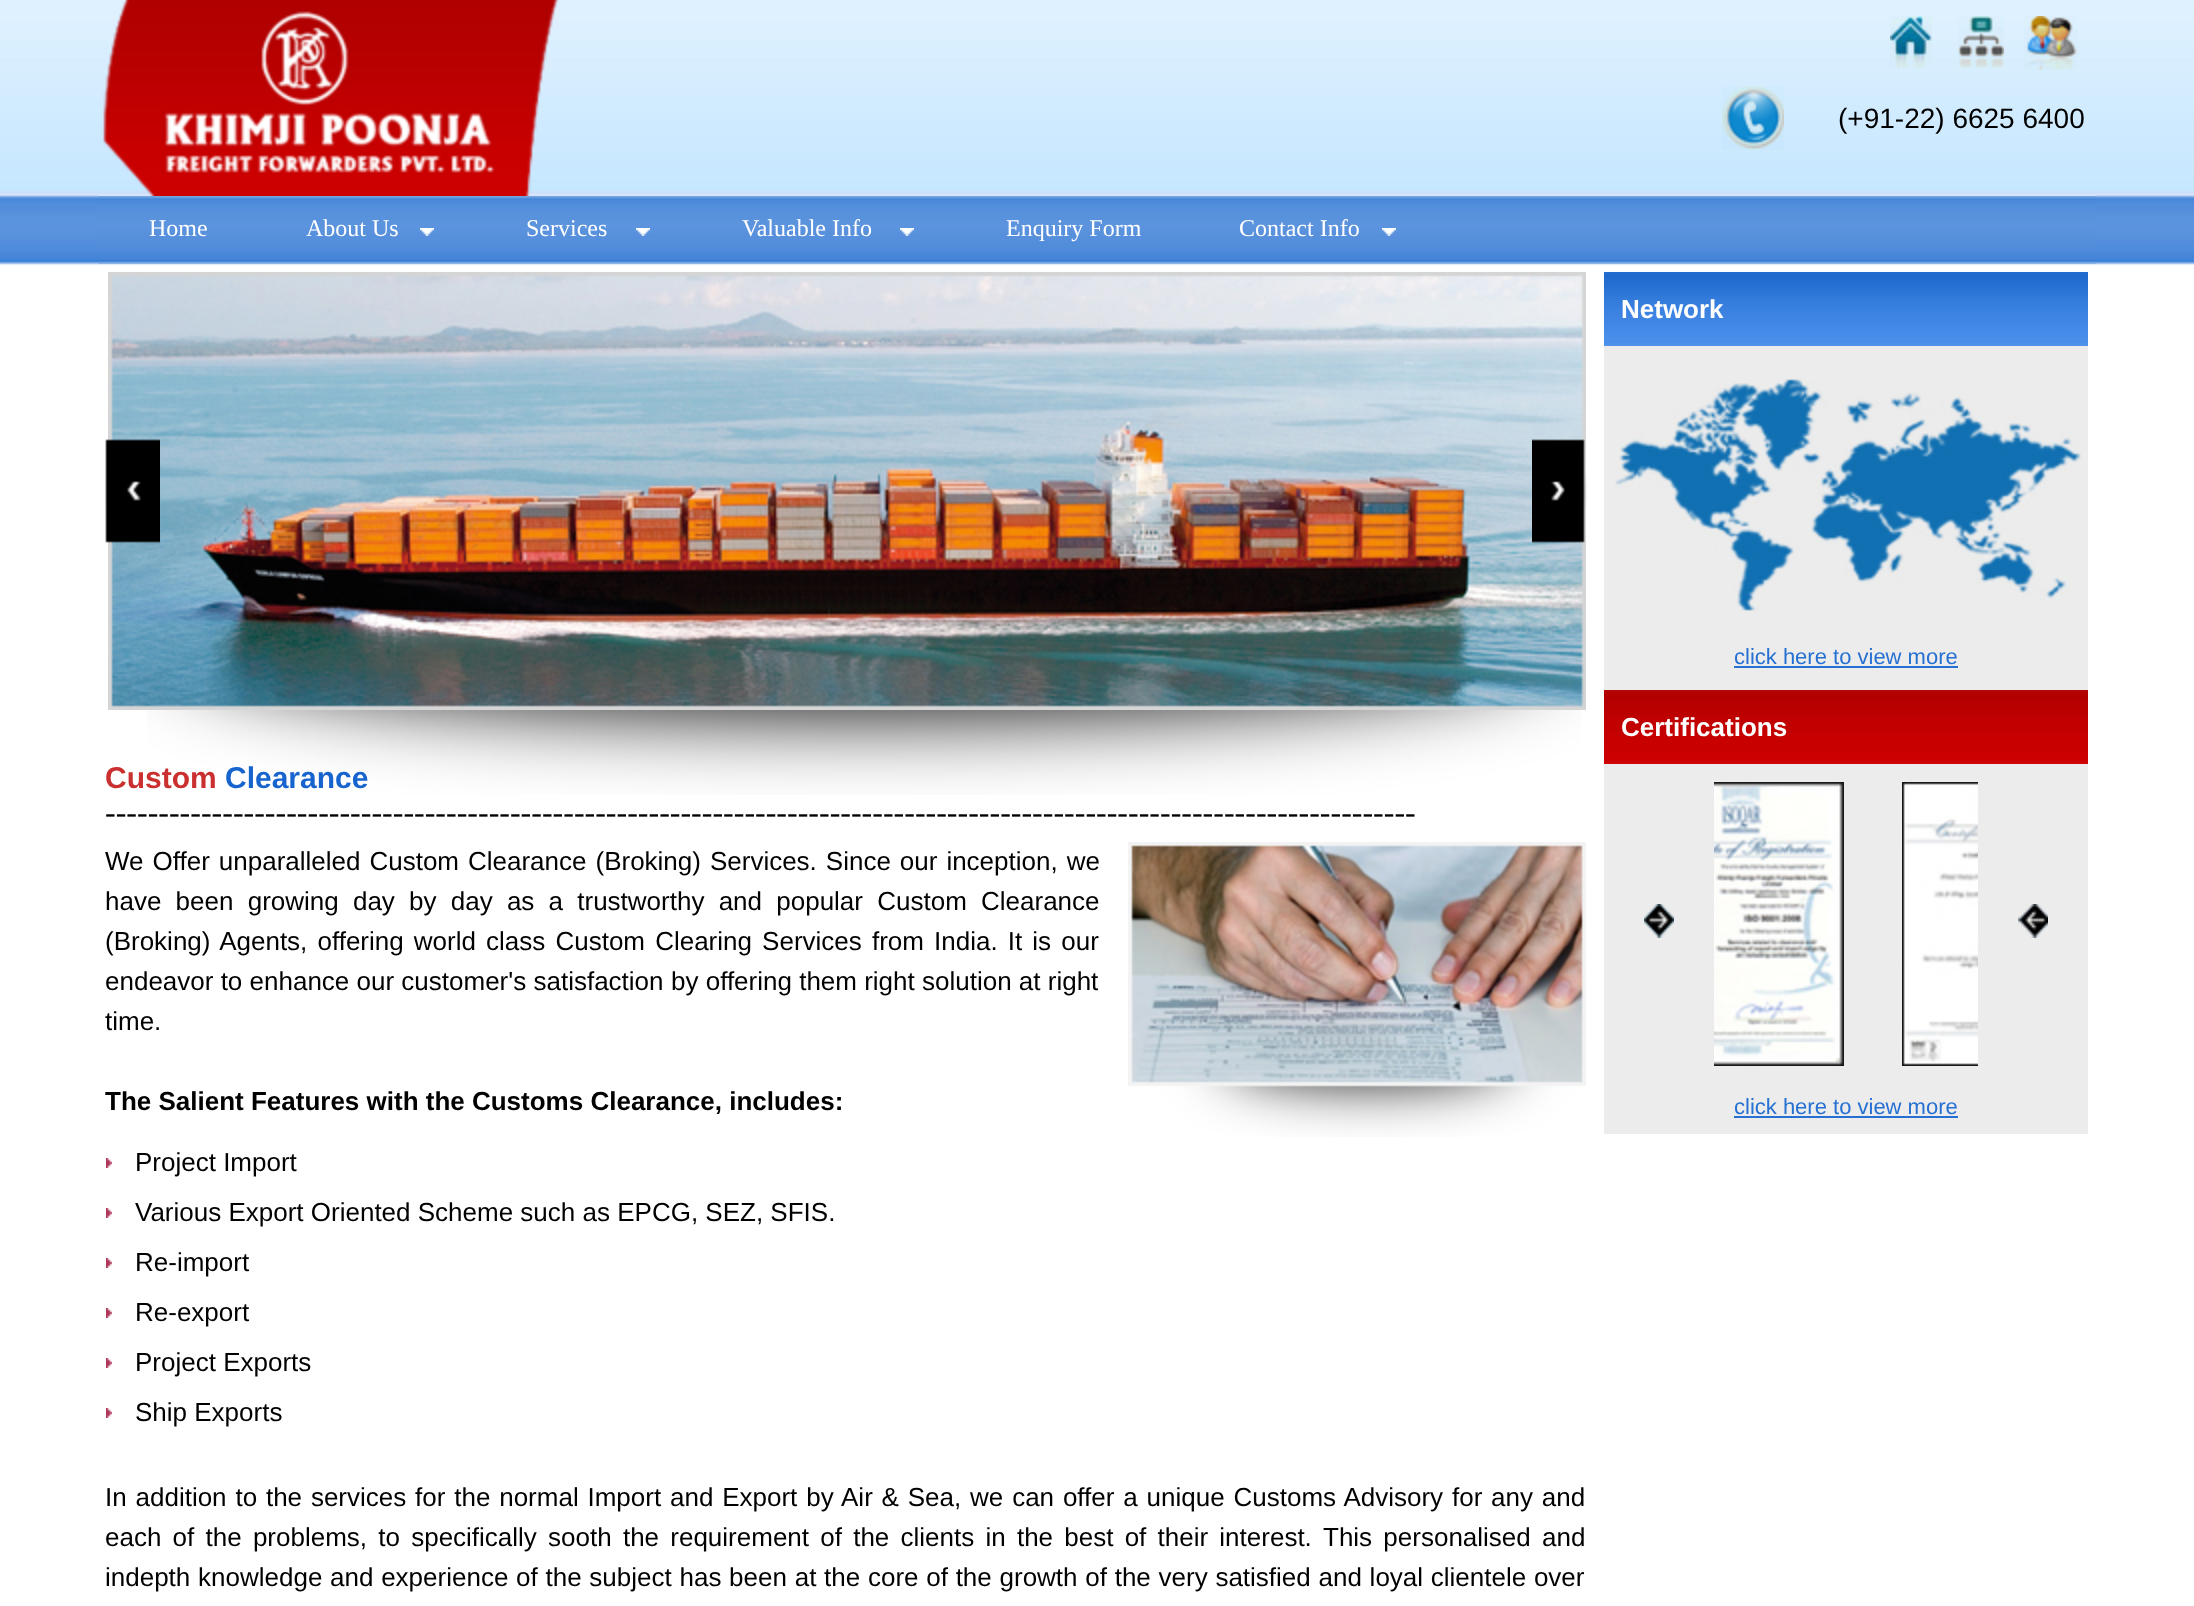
<svg xmlns="http://www.w3.org/2000/svg" width="2194" height="1606">
<style>
.a{font:28px Liberation Sans;fill:#000}
.b{font:24px Liberation Serif;fill:#fff}
.c{font:bold 30px Liberation Sans;fill:#cb3030}
.d{font:bold 30px Liberation Sans;fill:#1764cf}
.e{font:32px Liberation Serif;fill:#000}
.f{font:26px Liberation Sans;fill:#000}
.g{font:bold 26px Liberation Sans;fill:#000}
.h{font:bold 26px Liberation Sans;fill:#fff}
.i{font:22px Liberation Sans;fill:#2570d2}
</style>
<rect width="100%" height="100%" fill="#fff"/>
<image href="1.png" x="0" y="0" width="2194" height="265"/>
<path fill="#dae5f9" d="M98 195h1998v1H98z"/>
<image href="2.png" x="103" y="0" width="456" height="196"/>
<image href="3.png" x="1890" y="16" width="42" height="52"/>
<image href="4.png" x="1958" y="16" width="46" height="52"/>
<image href="5.png" x="2024" y="16" width="54" height="54"/>
<image href="6.png" x="1722" y="86" width="62" height="64"/>
<image href="7.png" x="98" y="196" width="1998" height="68"/>
<image href="8.png" x="420" y="228" width="14" height="8"/>
<image href="8.png" x="636" y="228" width="14" height="8"/>
<image href="8.png" x="900" y="228" width="14" height="8"/>
<image href="8.png" x="1382" y="228" width="14" height="8"/>
<image href="9.png" x="108" y="272" width="1478" height="438"/>
<image href="10.png" x="105" y="439" width="55" height="106"/>
<image href="11.png" x="1532" y="439" width="55" height="106"/>
<image href="12.png" x="147" y="710" width="1434" height="85"/>
<image href="13.png" x="1128" y="842" width="458" height="295"/>
<image href="14.png" x="106" y="1158" width="6" height="10"/>
<image href="14.png" x="106" y="1208" width="6" height="10"/>
<image href="14.png" x="106" y="1258" width="6" height="10"/>
<image href="14.png" x="106" y="1308" width="6" height="10"/>
<image href="14.png" x="106" y="1358" width="6" height="10"/>
<image href="14.png" x="106" y="1408" width="6" height="10"/>
<path fill="#ececec" d="M1604 346h484v788H1604z"/>
<image href="15.png" x="1604" y="272" width="484" height="74"/>
<image href="16.png" x="1615" y="379" width="466" height="232"/>
<path fill="#2570d2" d="M1734 666h224v2H1734z"/>
<image href="17.png" x="1604" y="690" width="484" height="74"/>
<image href="18.png" x="1644" y="904" width="30" height="34"/>
<image href="19.png" x="1714" y="782" width="130" height="284"/>
<image href="20.png" x="1902" y="782" width="76" height="284"/>
<image href="21.png" x="2018" y="904" width="30" height="34"/>
<path fill="#2570d2" d="M1734 1116h224v2H1734z"/>
<text class="a" x="1838" y="128">(+91-22) 6625 6400</text>
<text class="b" x="149" y="236">Home</text>
<text class="b" x="306" y="236">About Us</text>
<text class="b" x="526" y="236">Services</text>
<text class="b" x="742" y="236">Valuable Info</text>
<text class="b" x="1006" y="236">Enquiry Form</text>
<text class="b" x="1239" y="236">Contact Info</text>
<text class="c" x="105" y="788">Custom</text>
<text class="d" x="225" y="788">Clearance</text>
<text class="e" x="105" y="823">---------------------------------------------------------------------------------------------------------------------------</text>
<text class="f" x="105" y="870" word-spacing="1.75">We Offer unparalleled Custom Clearance (Broking) Services. Since our inception, we</text>
<text class="f" x="105" y="910" word-spacing="7">have been growing day by day as a trustworthy and popular Custom Clearance</text>
<text class="f" x="105" y="950" word-spacing="2.9">(Broking) Agents, offering world class Custom Clearing Services from India. It is our</text>
<text class="f" x="105" y="990">endeavor to enhance our customer's satisfaction</text>
<text class="f" x="671" y="990">by offering them right solution at right</text>
<text class="f" x="105" y="1030">time.</text>
<text class="g" x="105" y="1110">The Salient Features with the Customs Clearance, includes:</text>
<text class="f" x="135" y="1171">Project Import</text>
<text class="f" x="135" y="1221">Various Export Oriented Scheme such as EPCG, SEZ, SFIS.</text>
<text class="f" x="135" y="1271">Re-import</text>
<text class="f" x="135" y="1321">Re-export</text>
<text class="f" x="135" y="1371">Project Exports</text>
<text class="f" x="135" y="1421">Ship Exports</text>
<text class="f" x="105" y="1506" word-spacing="1.6">In addition to the services for the normal Import and Export by Air &amp; Sea, we can offer a unique Customs Advisory for any and</text>
<text class="f" x="105" y="1546" word-spacing="4">each of the problems, to specifically sooth the requirement of the clients in the best of their interest.</text>
<text class="f" x="1323" y="1546" word-spacing="4">This personalised and</text>
<text class="f" x="105" y="1586" word-spacing="0.5">indepth knowledge and experience of the subject has been at the core of the growth of the very satisfied and loyal clientele over</text>
<text class="h" x="1621" y="318">Network</text>
<text class="i" x="1734" y="664">click here to view more</text>
<text class="h" x="1621" y="736">Certifications</text>
<text class="i" x="1734" y="1114">click here to view more</text>
</svg>
